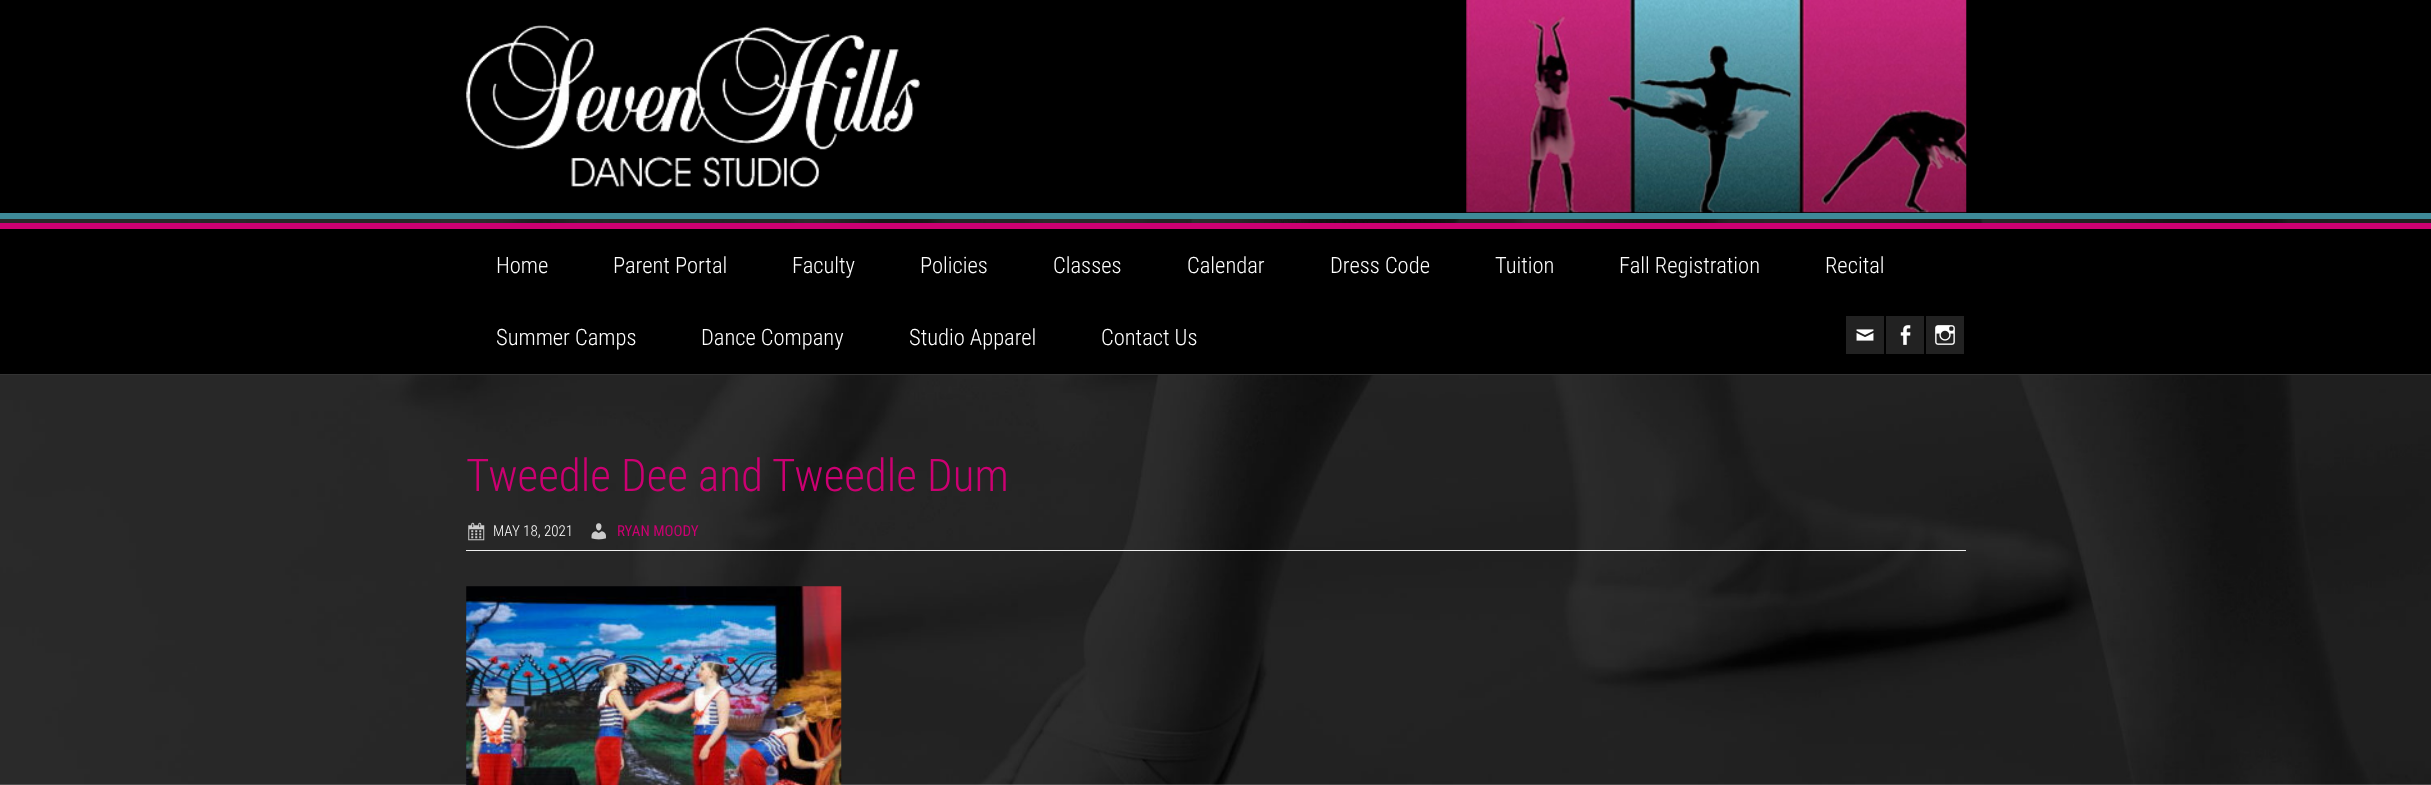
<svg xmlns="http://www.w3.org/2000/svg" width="2431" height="785">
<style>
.a{font:300 22.5px Roboto Condensed;fill:#fff}
.b{font:300 45px Roboto Condensed;fill:#cc0072}
.c{font:300 15px Roboto Condensed;fill:#fff}
.d{font:15px Roboto Condensed;fill:#cc0072}
</style>
<rect width="100%" height="100%" fill="#fff"/>
<image href="1.png" x="0" y="219" width="2431" height="566"/>
<path fill="#000" d="M0 0h2431v213H0z"/>
<path fill="#3e8a98" d="M0 213h2431v6H0z"/>
<image href="2.png" x="1466" y="0" width="501" height="213"/>
<image href="3.png" x="466" y="25" width="454" height="163"/>
<path fill="#000" d="M0 229h2431v145H0z"/>
<path fill="#cc0072" d="M0 223h2431v6H0z"/>
<path fill="#333" d="M0 374h2431v1H0z"/>
<path fill="#222" d="M1846 316h38v38H1846z"/>
<image href="4.png" x="1856" y="329" width="18" height="12"/>
<path fill="#222" d="M1886 316h38v38H1886z"/>
<image href="5.png" x="1900" y="325" width="11" height="20"/>
<path fill="#222" d="M1926 316h38v38H1926z"/>
<image href="6.png" x="1935" y="325" width="20" height="20"/>
<path fill="#eee" d="M466 550h1500v1H466z"/>
<image href="7.png" x="468" y="522" width="17" height="19"/>
<image href="8.png" x="591" y="523" width="15" height="17"/>
<image href="9.png" x="466" y="586" width="376" height="199"/>
<text class="a" x="496" y="273">Home</text>
<text class="a" x="613" y="273">Parent Portal</text>
<text class="a" x="792" y="273">Faculty</text>
<text class="a" x="920" y="273">Policies</text>
<text class="a" x="1053" y="273">Classes</text>
<text class="a" x="1187" y="273">Calendar</text>
<text class="a" x="1330" y="273">Dress Code</text>
<text class="a" x="1495" y="273">Tuition</text>
<text class="a" x="1619" y="273">Fall Registration</text>
<text class="a" x="1825" y="273">Recital</text>
<text class="a" x="496" y="345">Summer Camps</text>
<text class="a" x="701" y="345">Dance Company</text>
<text class="a" x="909" y="345">Studio Apparel</text>
<text class="a" x="1101" y="345">Contact Us</text>
<text class="b" x="466" y="491">Tweedle Dee and Tweedle Dum</text>
<text class="c" x="493" y="536">MAY 18, 2021</text>
<text class="d" x="617" y="536">RYAN MOODY</text>
</svg>
